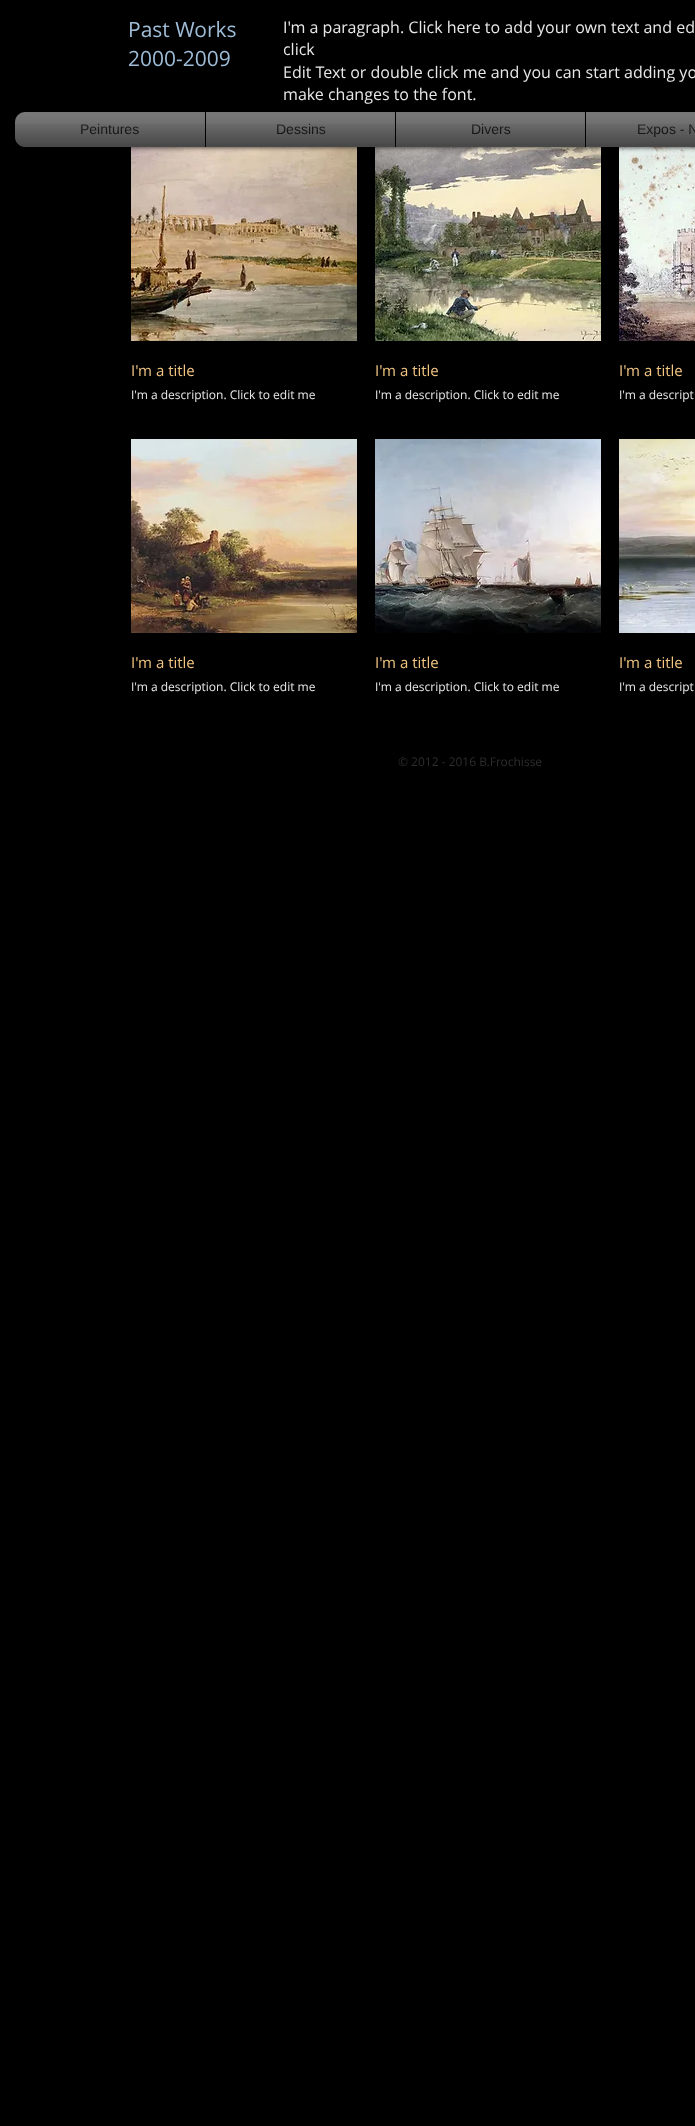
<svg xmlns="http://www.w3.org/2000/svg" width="695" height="2126">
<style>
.a{font:21px Open Sans;fill:#9fbcd7}
.b{font:16px Open Sans;fill:#e8e8e8}
.c{font:15px Open Sans;fill:#f2c682}
.d{font:12px Open Sans;fill:#e8e8e8}
.e{font:14px Liberation Sans;fill:#000}
.f{font:12px Open Sans;fill:#2d2d2d}
</style>
<rect width="100%" height="100%" fill="#000"/>
<image href="1.png" x="131" y="147" width="226" height="194"/>
<image href="2.png" x="375" y="147" width="226" height="194"/>
<image href="3.png" x="619" y="147" width="76" height="194"/>
<image href="4.png" x="131" y="439" width="226" height="194"/>
<image href="5.png" x="375" y="439" width="226" height="194"/>
<image href="6.png" x="619" y="439" width="76" height="194"/>
<rect fill="#00000099" filter="blur(2px)" x="15" y="113" width="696" height="35" rx="10"/>
<image href="7.png" x="15" y="112" width="10" height="30"/>
<image href="8.png" x="15" y="137" width="10" height="10"/>
<path fill="#575757" d="M25 112h180v35h-180c-5.5 0-10-4.5-10-10v-15c0-5.5 4.5-10 10-10z"/>
<path fill="#575757" d="M206 112h189v35H206z"/>
<path fill="#575757" d="M396 112h189v35H396z"/>
<path fill="#575757" d="M586 112h109v35H586z"/>
<text class="a" x="128" y="37">Past Works</text>
<text class="a" x="128" y="66">2000-2009</text>
<text class="b" x="283" y="33">I'm a paragraph. Click here to add your own text and ed</text>
<text class="b" x="283" y="55">click</text>
<text class="b" x="283" y="78">Edit Text or double click me and you can start adding yo</text>
<text class="b" x="283" y="100">make changes to the font.</text>
<text class="c" x="131" y="376">I'm a title</text>
<text class="d" x="131" y="399">I'm a description. Click to edit me</text>
<text class="c" x="375" y="376">I'm a title</text>
<text class="d" x="375" y="399">I'm a description. Click to edit me</text>
<text class="c" x="619" y="376">I'm a title</text>
<text class="d" x="619" y="399">I'm a descript</text>
<text class="c" x="131" y="668">I'm a title</text>
<text class="d" x="131" y="691">I'm a description. Click to edit me</text>
<text class="c" x="375" y="668">I'm a title</text>
<text class="d" x="375" y="691">I'm a description. Click to edit me</text>
<text class="c" x="619" y="668">I'm a title</text>
<text class="d" x="619" y="691">I'm a descript</text>
<text class="e" x="80" y="134">Peintures</text>
<image href="9.png" x="15" y="112" width="190" height="32"/>
<image href="10.png" x="15" y="124" width="190" height="23"/>
<text class="e" x="276" y="134">Dessins</text>
<image href="11.png" x="206" y="112" width="189" height="32"/>
<image href="12.png" x="206" y="124" width="189" height="23"/>
<text class="e" x="471" y="134">Divers</text>
<image href="13.png" x="396" y="112" width="189" height="32"/>
<image href="14.png" x="396" y="124" width="189" height="23"/>
<text class="e" x="637" y="134">Expos - N</text>
<image href="15.png" x="586" y="112" width="109" height="32"/>
<image href="16.png" x="586" y="124" width="109" height="23"/>
<text class="f" x="398" y="766">© 2012 - 2016 B.Frochisse</text>
</svg>
